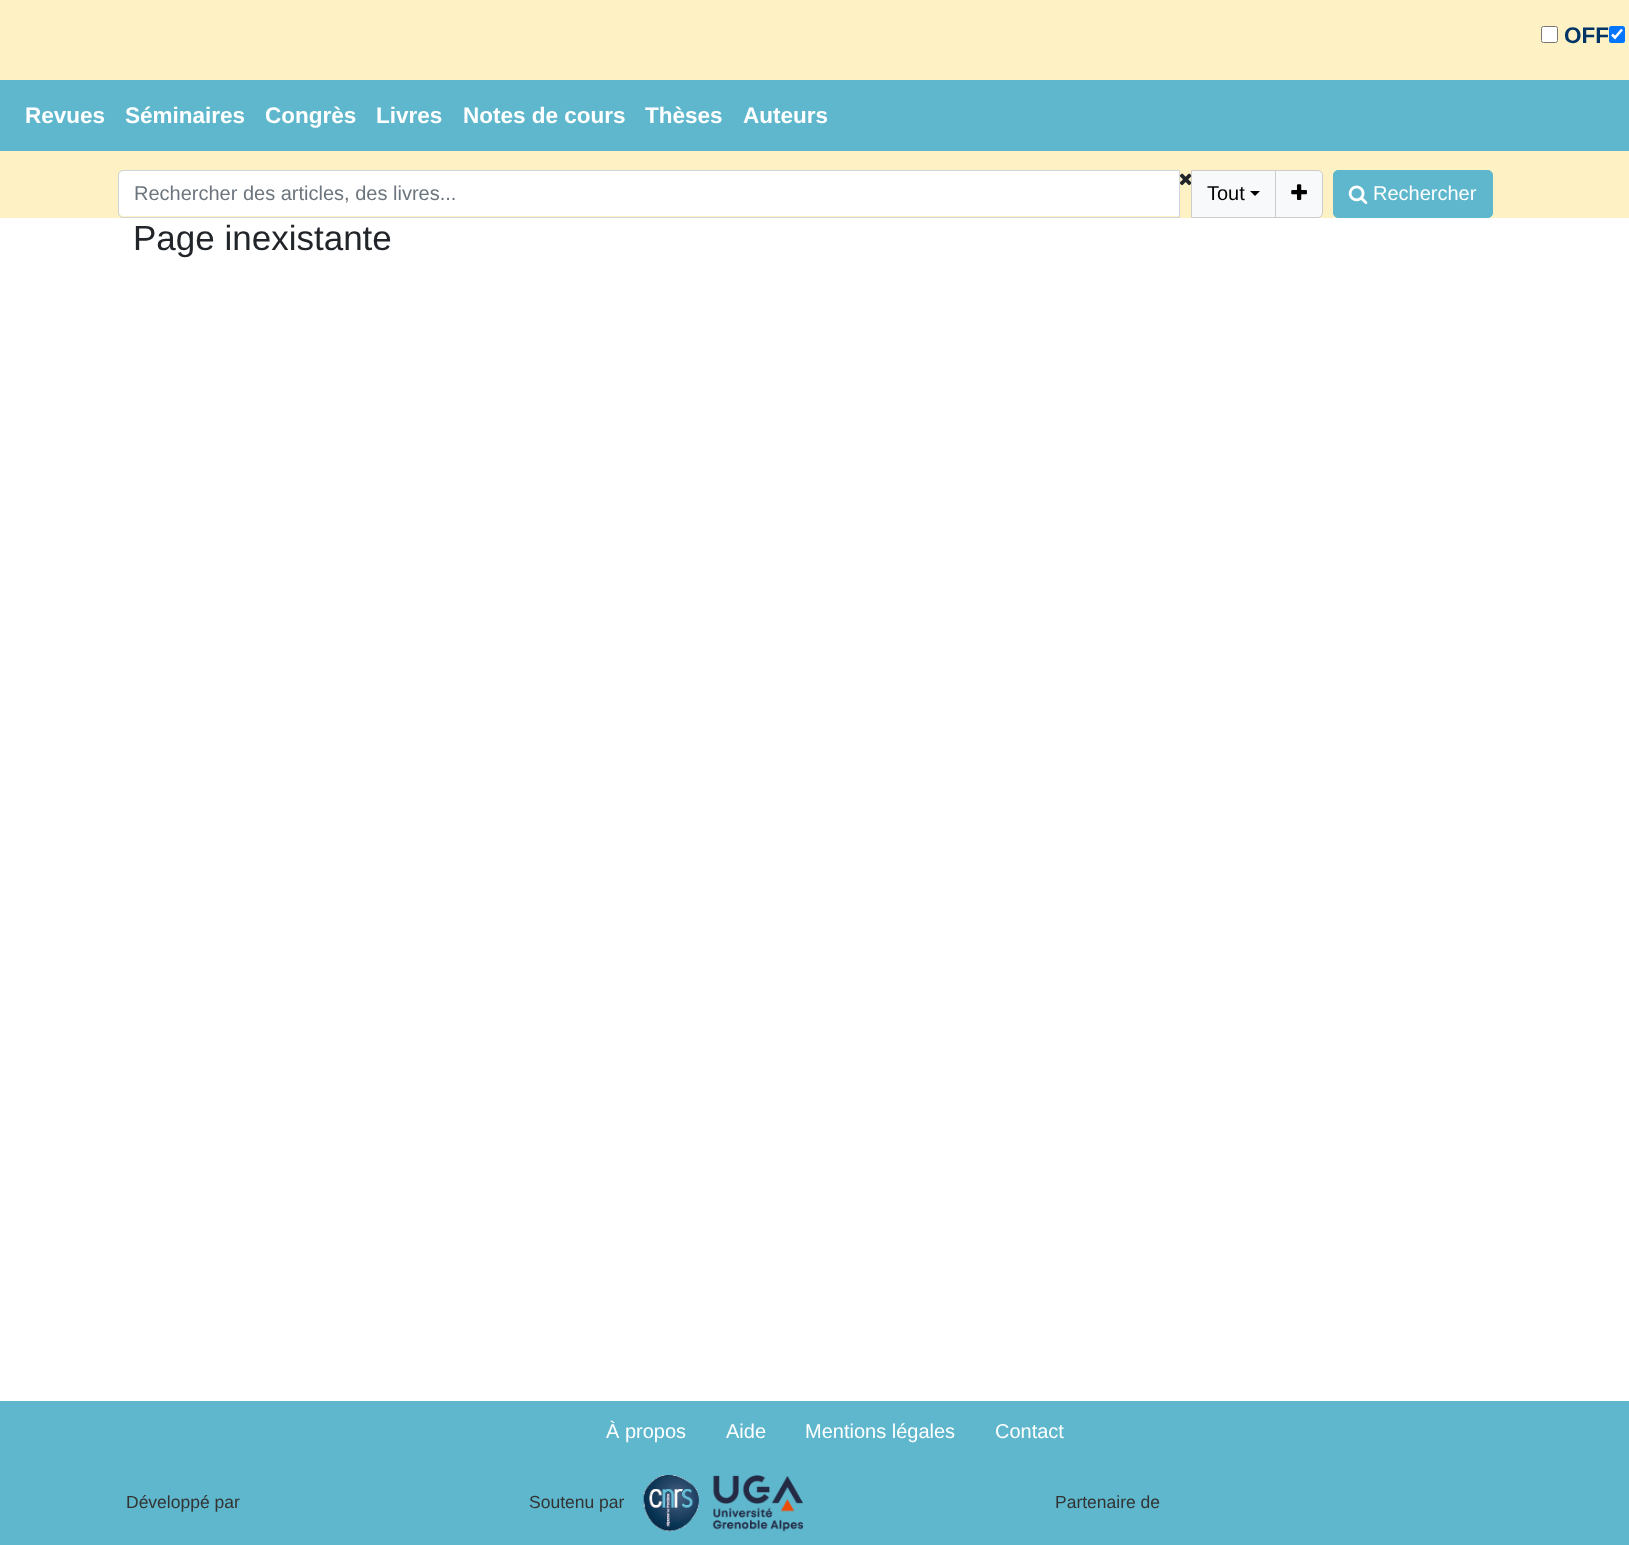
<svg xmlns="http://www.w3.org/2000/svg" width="1629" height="1545">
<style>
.a{font:bold 22.5px Liberation Sans;fill:#036}
.b{font:bold 22.5px Liberation Sans;fill:#fff}
.c{font:20px Liberation Sans;fill:#6c757d}
.d{font:20px Liberation Sans;fill:#000}
.e{font:20px Liberation Sans;fill:#fff}
.f{font:35px Liberation Sans;fill:#212529}
.g{font:17.5px Liberation Sans;fill:#333}
</style>
<rect width="100%" height="100%" fill="#fff"/>
<path fill="#fef2c4" d="M0 0h1629v80H0z"/>
<rect fill="#fff" stroke="#767676" x="1541.5" y="26.5" width="16" height="16" rx="2"/>
<rect fill="#0075ff" x="1609" y="26" width="16" height="17" rx="2.5"/>
<path fill="none" stroke="#fff" stroke-width="2.6" d="M1612 34.5l3 3l7-8"/>
<path fill="#5eb7cc" d="M0 80h1629v71H0z"/>
<path fill="#fef2c4" d="M0 151h1629v67H0z"/>
<image href="1.png" x="1180" y="173" width="11" height="13"/>
<path fill="#f8f9fa" stroke="#ccc" d="M1191.5 170.5h84v47H1191.5z"/>
<path fill="#f8f9fa" stroke="#ccc" d="M1275.5 170.5h42.5c2.5 0 4.5 2 4.5 4.5v38c0 2.5-2 4.5-4.5 4.5h-42.5z"/>
<image href="2.png" x="1291" y="184" width="16" height="16"/>
<path fill="#fff" d="M123 171h1056v45h-1056c-2 0-4-2-4-4v-37c0-2 2-4 4-4z"/>
<path fill="none" stroke="#ced4da" d="M123 170.5h1056.5v47h-1056.5c-2.5 0-4.5-2-4.5-4.5v-38c0-2.5 2-4.5 4.5-4.5z"/>
<path fill="#000" d="M1250 191h10l-5 5z"/>
<rect fill="#5eb7cc" stroke="#5eb7cc" x="1333.5" y="170.5" width="159" height="47" rx="4.5"/>
<image href="3.png" x="1348" y="185" width="20" height="20"/>
<path fill="#5eb7cc" d="M0 1401h1629v144H0z"/>
<image href="4.png" x="643" y="1475" width="56" height="57"/>
<image href="5.png" x="712" y="1475" width="92" height="57"/>
<text class="a" x="1564" y="43">OFF</text>
<text class="b" x="25" y="123">Revues</text>
<text class="b" x="125" y="123">Séminaires</text>
<text class="b" x="265" y="123">Congrès</text>
<text class="b" x="376" y="123">Livres</text>
<text class="b" x="463" y="123">Notes de cours</text>
<text class="b" x="645" y="123">Thèses</text>
<text class="b" x="743" y="123">Auteurs</text>
<text class="c" x="134" y="200">Rechercher des articles, des livres...</text>
<text class="d" x="1207" y="200">Tout</text>
<text class="e" x="1373" y="200">Rechercher</text>
<text class="f" x="133" y="250">Page inexistante</text>
<text class="e" x="606" y="1438">À propos</text>
<text class="e" x="726" y="1438">Aide</text>
<text class="e" x="805" y="1438">Mentions légales</text>
<text class="e" x="995" y="1438">Contact</text>
<text class="g" x="126" y="1508">Développé par</text>
<text class="g" x="529" y="1508">Soutenu par</text>
<text class="g" x="1055" y="1508">Partenaire de</text>
</svg>
